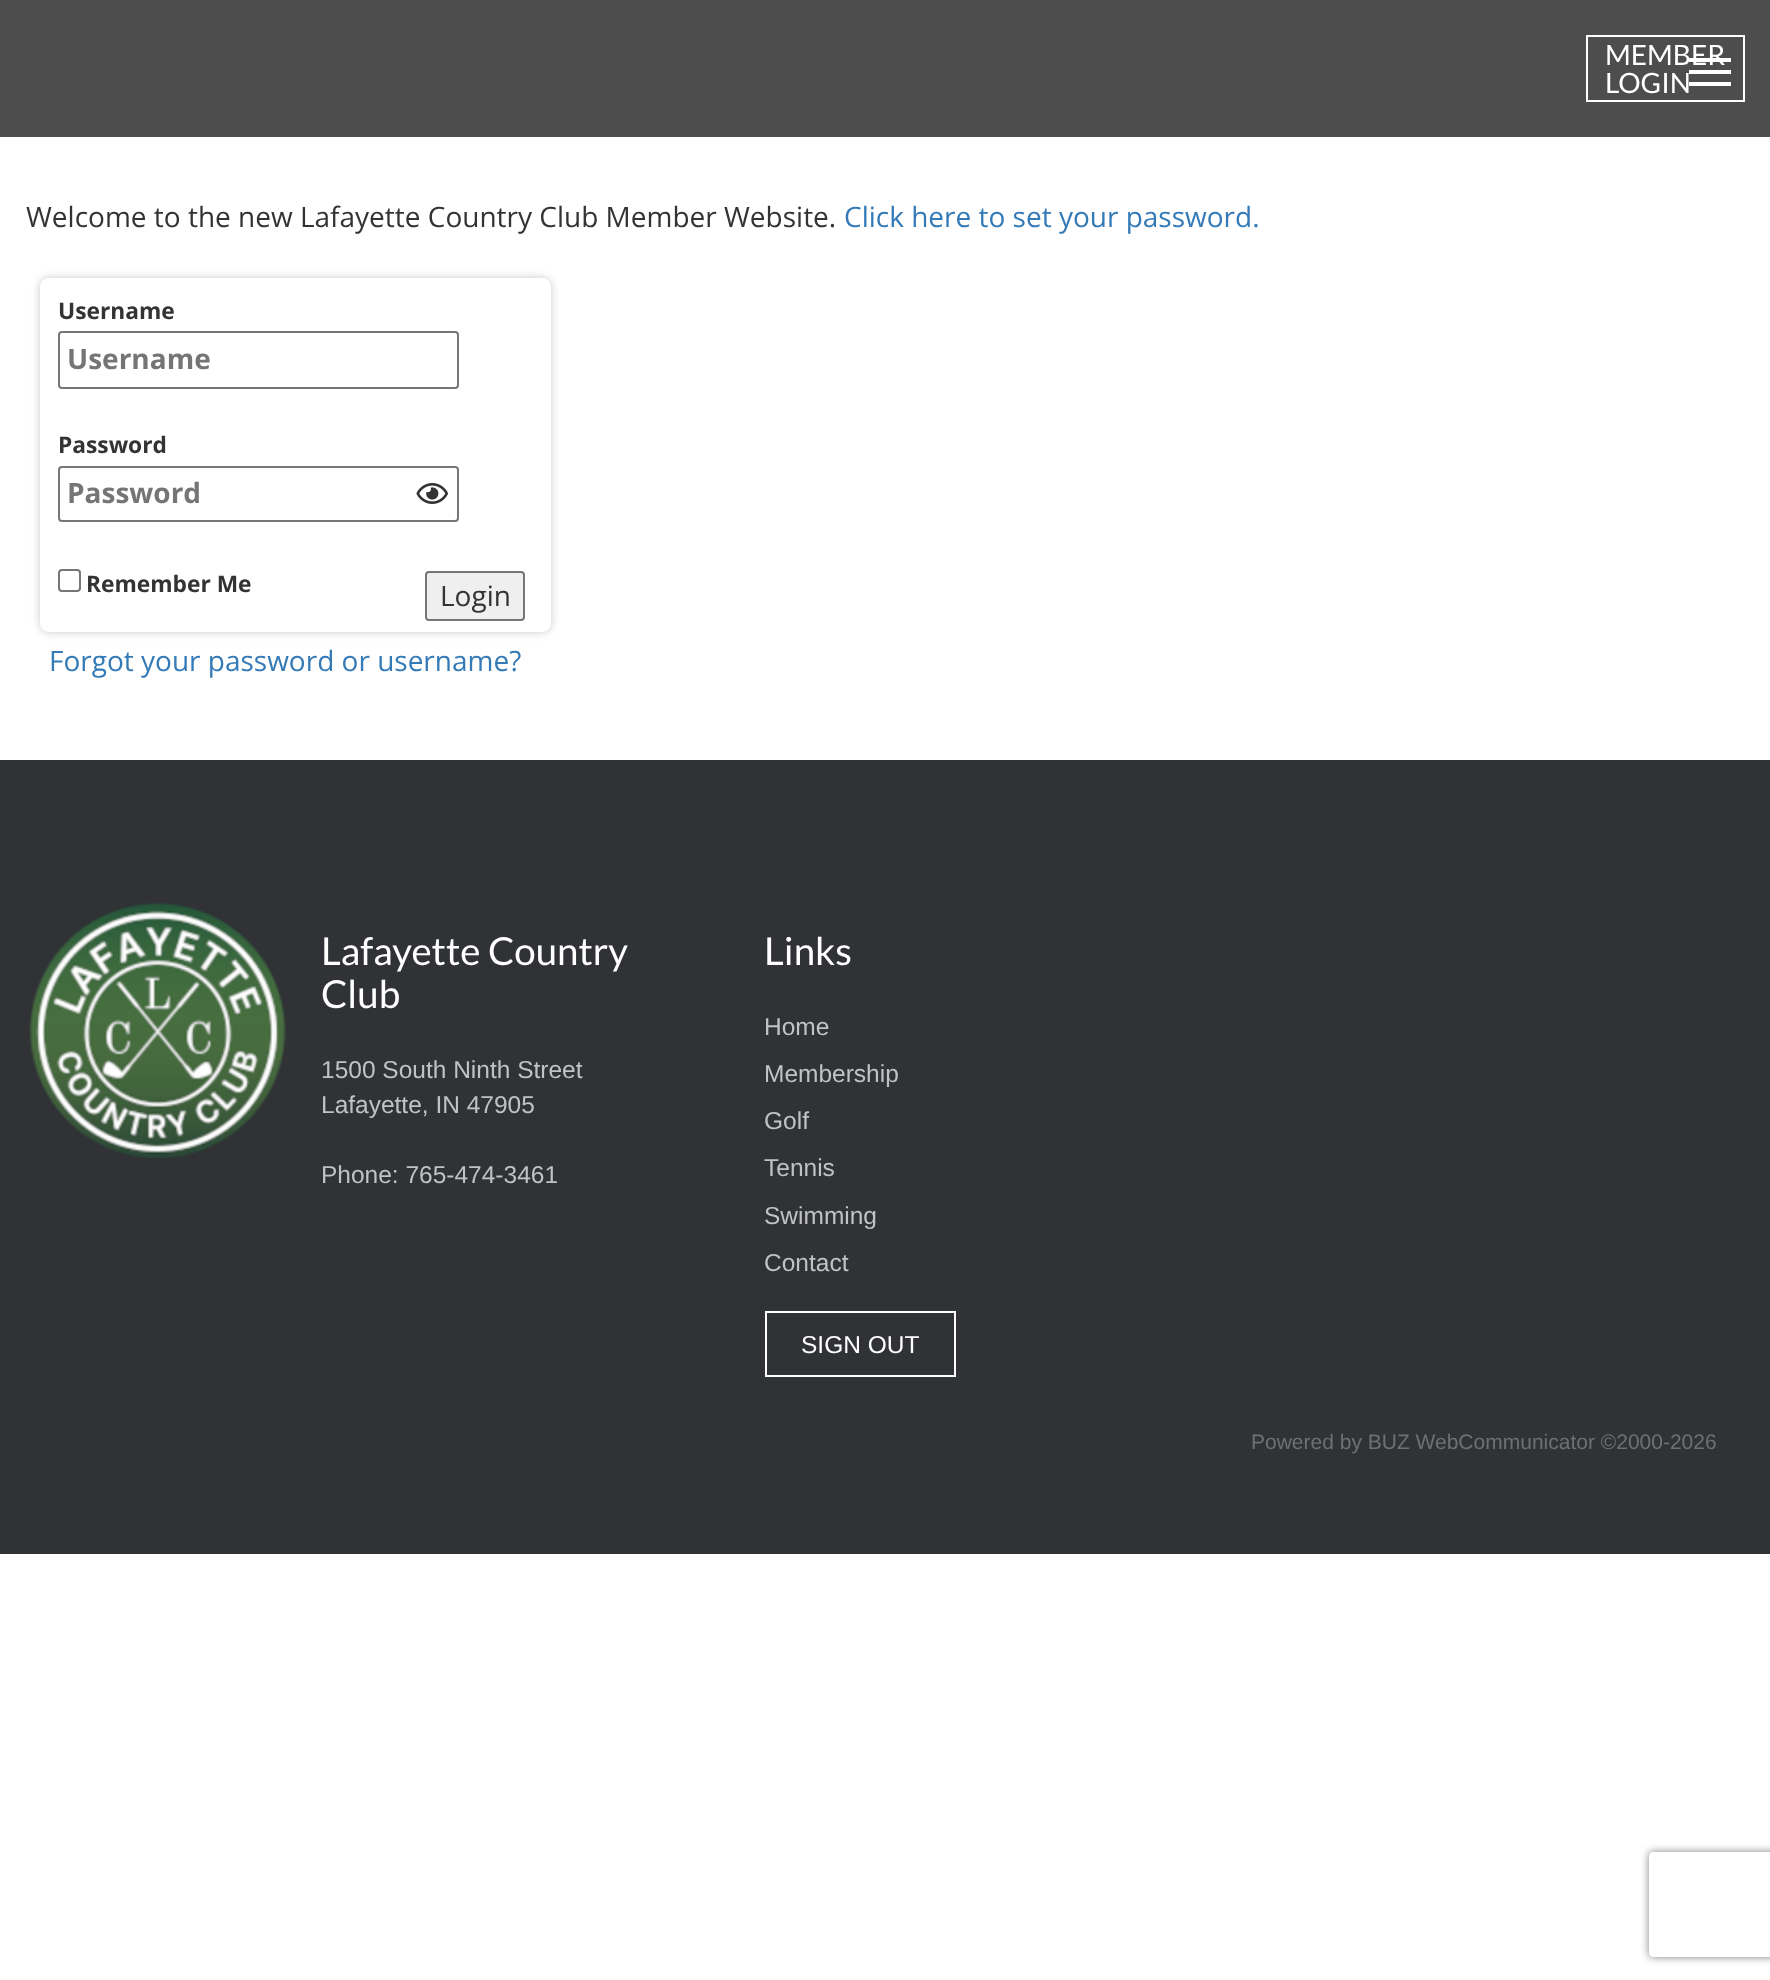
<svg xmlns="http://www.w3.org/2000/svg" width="1770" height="1980">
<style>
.a{font:28px Lato;fill:#fff}
.b{font:28px Open Sans;fill:#333}
.c{font:28px Open Sans;fill:#337ab7}
.d{font:bold 22.75px Open Sans;fill:#333}
.e{font:bold 28px Open Sans;fill:#757575}
.f{font:38.5px Lato;fill:#fff}
.g{font:24.5px Liberation Sans;fill:#c1c2c3}
.h{font:24.5px Liberation Sans;fill:#fff}
.i{font:21px Liberation Sans;fill:#6e7072}
</style>
<defs>
<clipPath id="clip1"><path d="M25 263h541v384h-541zm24 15h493c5 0 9 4 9 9v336c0 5-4 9-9 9h-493c-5 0-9-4-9-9v-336c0-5 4-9 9-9z" clip-rule="evenodd"/></clipPath>
<clipPath id="clip2"><path d="M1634 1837h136v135h-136zm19 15h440c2 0 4 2 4 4v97c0 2-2 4-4 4h-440c-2 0-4-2-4-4v-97c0-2 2-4 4-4z" clip-rule="evenodd"/></clipPath>
</defs>
<rect width="100%" height="100%" fill="#fff"/>
<path fill="#4d4d4d" d="M0 0h1770v137H0z"/>
<path fill="none" stroke="#fff" stroke-width="2" d="M1587 36h157v65H1587z"/>
<path fill="#fff" d="M1689 70h42v4H1689z"/>
<path fill="#fff" d="M1689 58h42v4H1689z"/>
<path fill="#fff" d="M1689 82h42v4H1689z"/>
<g clip-path="url(#clip1)">
<rect fill="#c8c8c8" filter="blur(4.5px)" x="40" y="278" width="511" height="354" rx="9"/>
</g>
<rect fill="none" stroke="#767676" stroke-width="2" x="59" y="332" width="399" height="56" rx="3"/>
<rect fill="none" stroke="#767676" stroke-width="2" x="59" y="467" width="399" height="54" rx="3"/>
<image href="1.png" x="416" y="483" width="32" height="21"/>
<rect fill="none" stroke="#767676" stroke-width="2" x="59" y="570" width="21" height="21" rx="3"/>
<rect fill="#efefef" stroke="#767676" stroke-width="2" x="426" y="572" width="98" height="48" rx="3"/>
<path fill="#303236" d="M0 760h1770v794H0z"/>
<image href="2.png" x="29" y="902" width="257" height="257"/>
<path fill="none" stroke="#fff" stroke-width="2" d="M766 1312h189v64H766z"/>
<g clip-path="url(#clip2)">
<rect fill="#808080" filter="blur(4.5px)" x="1649" y="1852" width="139" height="105" rx="4"/>
</g>
<text class="a" x="1605" y="65">MEMBER</text>
<text class="a" x="1605" y="93">LOGIN</text>
<text class="b" x="26" y="227">Welcome to the new Lafayette Country Club Member Website.</text>
<text class="c" x="844" y="227">Click here to set your password.</text>
<text class="d" x="58" y="319">Username</text>
<text class="e" x="67" y="369">Username</text>
<text class="d" x="58" y="453">Password</text>
<text class="e" x="67" y="503">Password</text>
<text class="d" x="86" y="592">Remember Me</text>
<text class="b" x="440" y="606">Login</text>
<text class="c" x="49" y="671">Forgot your password or username?</text>
<text class="f" x="321" y="965">Lafayette Country</text>
<text class="f" x="321" y="1008">Club</text>
<text class="g" x="321" y="1078">1500 South Ninth Street</text>
<text class="g" x="321" y="1113">Lafayette, IN 47905</text>
<text class="g" x="321" y="1183">Phone: 765-474-3461</text>
<text class="f" x="764" y="965">Links</text>
<text class="g" x="764" y="1035">Home</text>
<text class="g" x="764" y="1082">Membership</text>
<text class="g" x="764" y="1129">Golf</text>
<text class="g" x="764" y="1176">Tennis</text>
<text class="g" x="764" y="1224">Swimming</text>
<text class="g" x="764" y="1271">Contact</text>
<text class="h" x="801" y="1353">SIGN OUT</text>
<text class="i" x="1251" y="1449">Powered by BUZ WebCommunicator ©2000-2026</text>
</svg>
